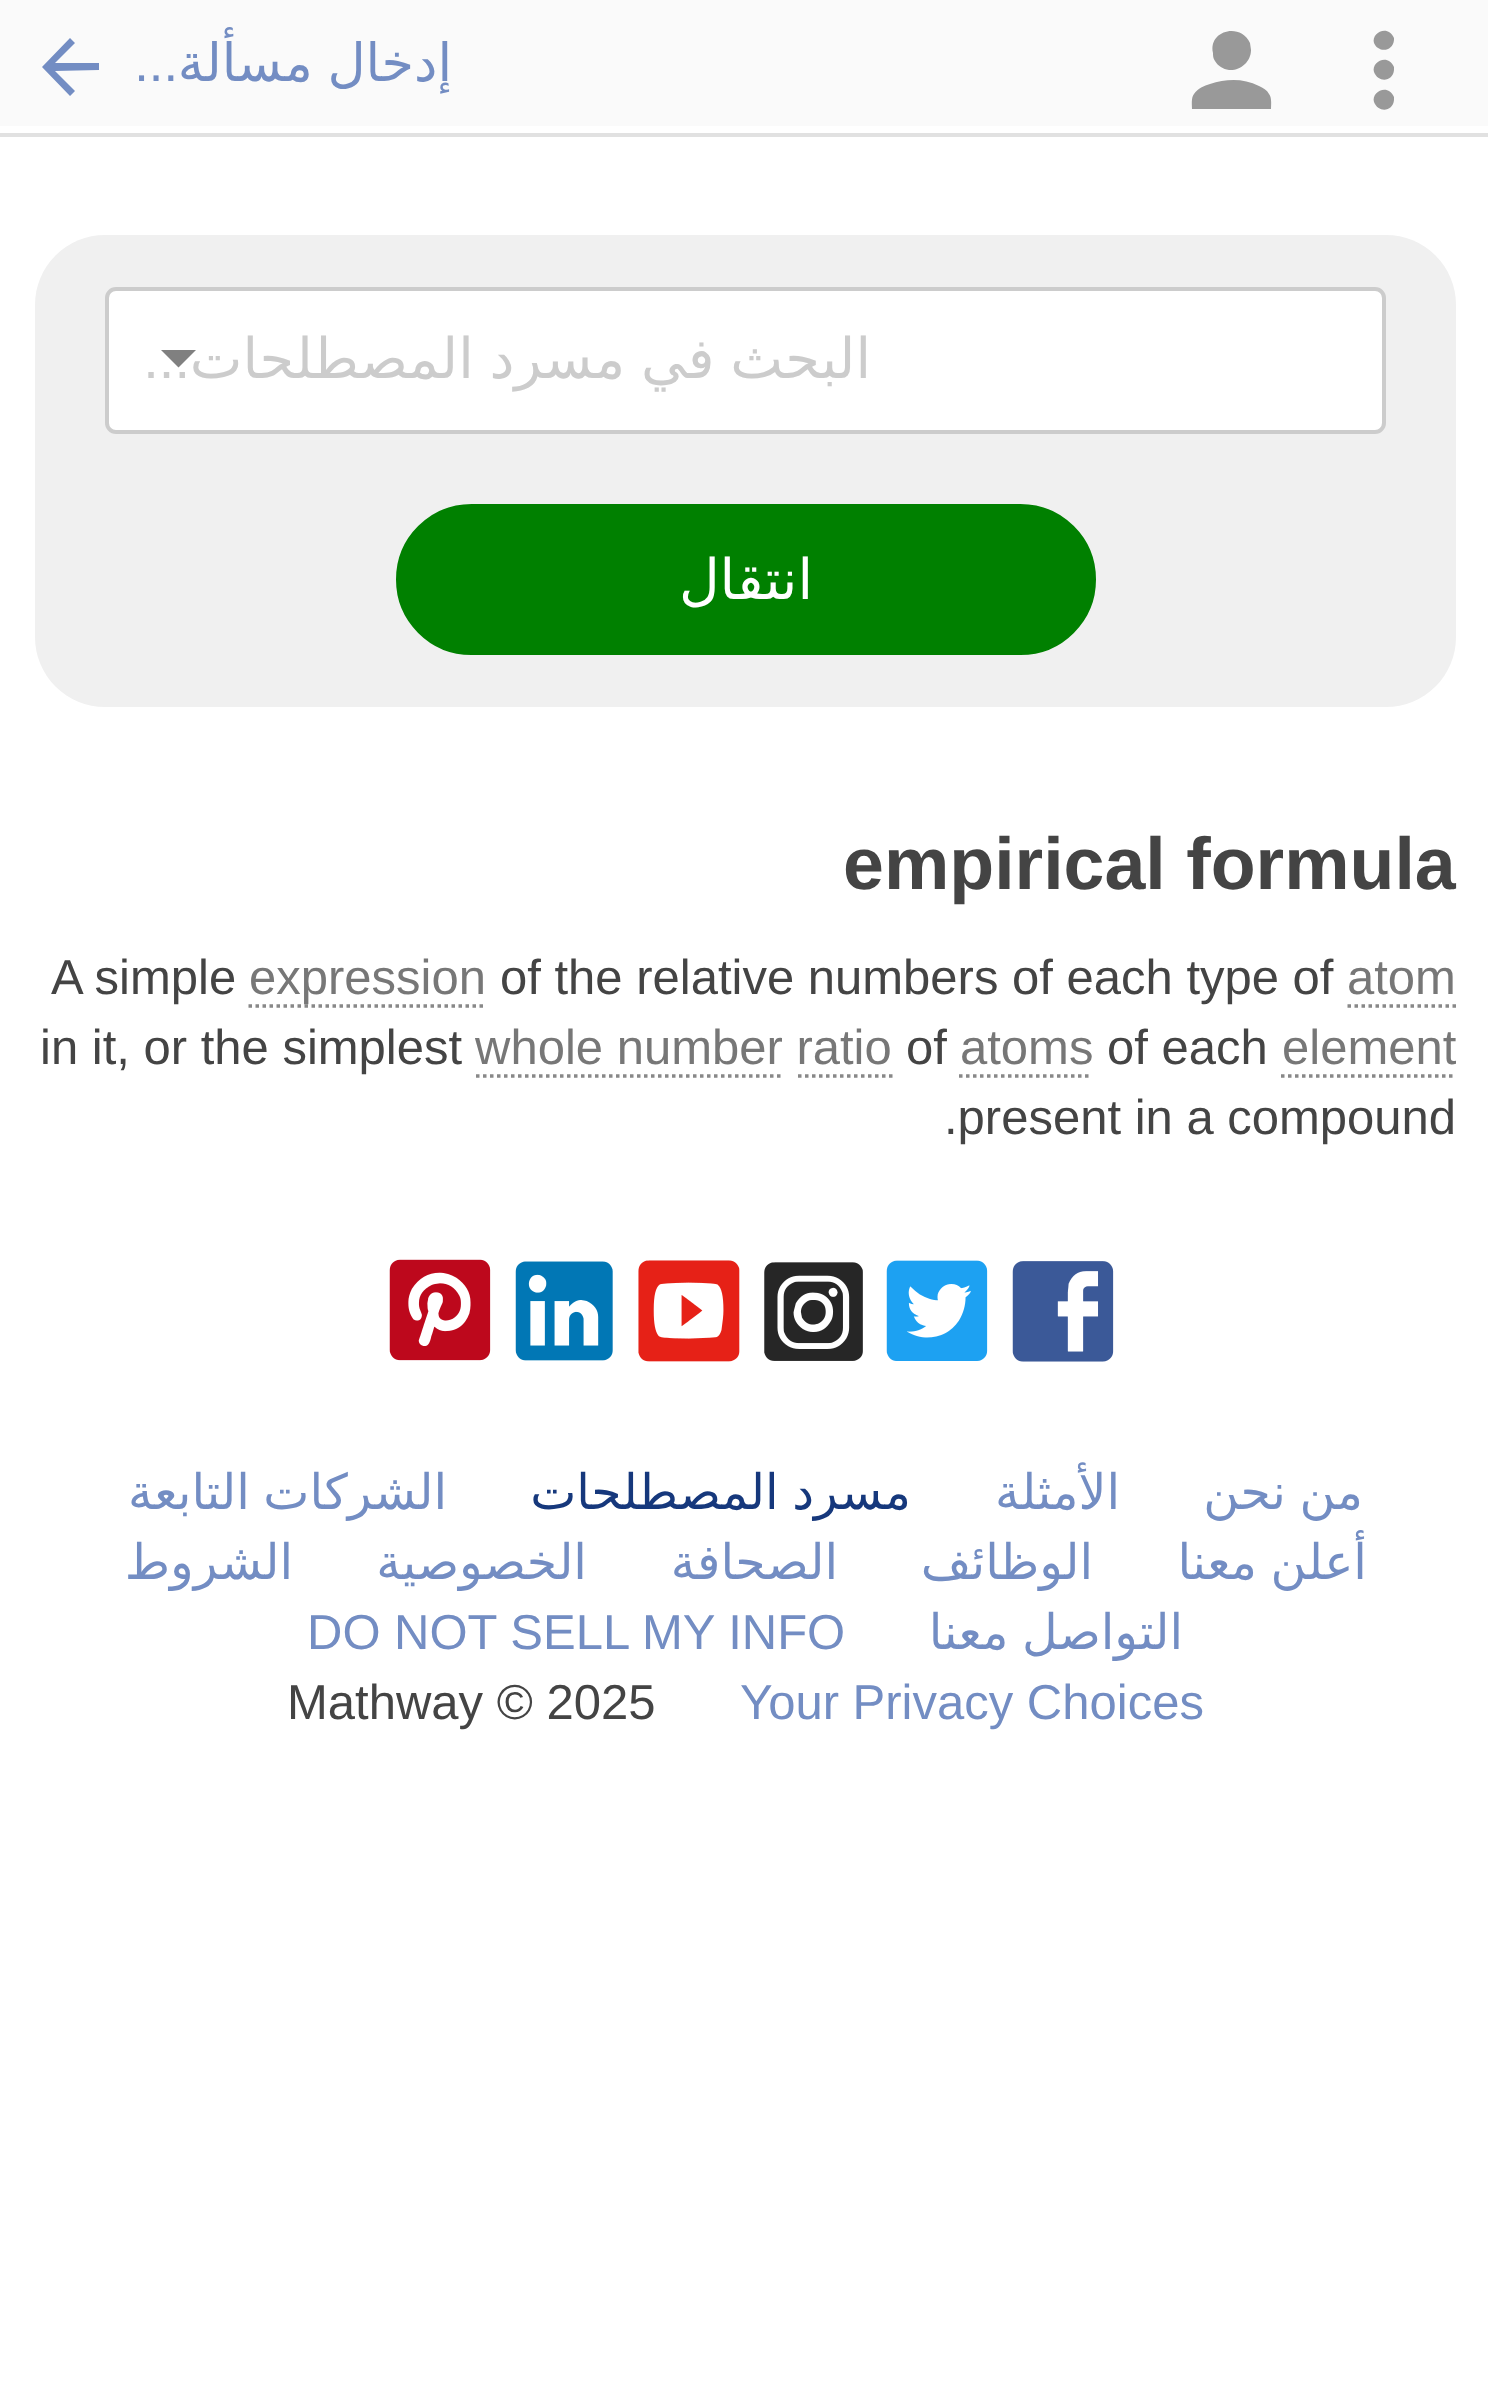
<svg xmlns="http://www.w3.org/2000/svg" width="1488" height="2386">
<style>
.a{font:52.5px Liberation Sans;direction:rtl;fill:#738dc3}
.b{font:52.5px DejaVu Sans;direction:rtl;fill:#738dc3}
.c{font:56px Liberation Sans;direction:rtl;fill:#ccc}
.d{font:56px DejaVu Sans;direction:rtl;fill:#ccc}
.e{font:56px DejaVu Sans;direction:rtl;fill:#fff}
.f{font:bold 73.5px Liberation Sans;fill:#444}
.g{font:49px Liberation Sans;fill:#444}
.h{font:49px Liberation Sans;fill:#777}
.i{font:49px DejaVu Sans;direction:rtl;fill:#738dc3}
.j{font:49px DejaVu Sans;direction:rtl;fill:#16387c}
.k{font:49px Liberation Sans;fill:#738dc3}
</style>
<defs>
<clipPath id="clip1"><path d="M130 326h742v66H130z"/></clipPath>
</defs>
<rect width="100%" height="100%" fill="#fff"/>
<path fill="#e1e1e1" d="M0 133h1488v4H0z"/>
<path fill="#fafafa" d="M0 0h1488v126H0z"/>
<path fill="#738dc3" d="M70 38l-28 29l28 29l5-5l-20-20l44-1v-7h-44l20-20z"/>
<path fill="#999" d="M1251 50l-1-7c-10-21-42-12-37 10c0 3 0 5 2 8c3 5 8 8 14 9c11 1 22-8 22-20zm20 59c0-5 1-11-2-15c-2-4-6-6-10-8c-16-8-33-7-49-2c-6 2-12 4-16 10c-3 4-2 10-2 15z"/>
<path fill="#999" d="M1394 38c-6-14-23-5-20 5c4 10 19 9 20-3zm0 29c-6-14-23-5-20 5c4 11 19 10 20-2zm0 30c-6-14-23-5-20 5c4 11 19 10 20-2z"/>
<rect fill="#f0f0f0" x="35" y="235" width="1421" height="472" rx="70"/>
<rect fill="#fff" stroke="#ccc" stroke-width="4" x="107" y="289" width="1277" height="143" rx="9"/>
<rect fill="#008000" stroke="#008000" stroke-width="4" x="398" y="506" width="696" height="147" rx="73.5"/>
<path fill="none" stroke="#888" stroke-width="3.5" stroke-dasharray="3.5 3.5" d="M248.5 1006h238"/>
<path fill="none" stroke="#888" stroke-width="3.5" stroke-dasharray="3.5 3.5" d="M1347.5 1006h108.5"/>
<path fill="none" stroke="#888" stroke-width="3.5" stroke-dasharray="3.5 3.5" d="M476 1076h308"/>
<path fill="none" stroke="#888" stroke-width="3.5" stroke-dasharray="3.5 3.5" d="M959 1076h133"/>
<path fill="none" stroke="#888" stroke-width="3.5" stroke-dasharray="3.5 3.5" d="M1281 1076h175"/>
<path fill="none" stroke="#888" stroke-width="3.5" stroke-dasharray="3.5 3.5" d="M798 1076h94.5"/>
<image href="1.png" x="389" y="1259" width="102" height="102"/>
<image href="2.png" x="515" y="1261" width="98" height="100"/>
<image href="3.png" x="638" y="1260" width="102" height="102"/>
<image href="4.png" x="764" y="1262" width="99" height="99"/>
<image href="5.png" x="886" y="1260" width="102" height="101"/>
<image href="6.png" x="1012" y="1261" width="102" height="101"/>
<text class="a" x="178" y="81">...</text>
<text class="b" x="452" y="81" word-spacing="-2">إدخال مسألة</text>
<text class="c" x="190" y="378">...</text>
<g clip-path="url(#clip1)">
<text class="d" x="871" y="378" word-spacing="-2">البحث في مسرد المصطلحات</text>
</g>
<path fill="#808080" d="M161 350h35l-17.5 17.5z"/>
<text class="e" x="813" y="599">انتقال</text>
<text class="f" x="843" y="889">empirical formula</text>
<text class="g" x="51" y="994">A simple</text>
<text class="h" x="249" y="994">expression</text>
<text class="g" x="500" y="994">of the relative numbers of each type of</text>
<text class="h" x="1347" y="994">atom</text>
<text class="g" x="40" y="1064">in it, or the simplest</text>
<text class="h" x="475" y="1064">whole number ratio</text>
<text class="g" x="906" y="1064">of</text>
<text class="h" x="960" y="1064">atoms</text>
<text class="g" x="1107" y="1064">of each</text>
<text class="h" x="1282" y="1064">element</text>
<text class="g" x="944" y="1134">.present in a compound</text>
<text class="i" x="447" y="1509" word-spacing="-2">الشركات التابعة</text>
<text class="j" x="911" y="1509" word-spacing="-2">مسرد المصطلحات</text>
<text class="i" x="1120" y="1509">الأمثلة</text>
<text class="i" x="1363" y="1509" word-spacing="-2">من نحن</text>
<text class="i" x="293" y="1579">الشروط</text>
<text class="i" x="587" y="1579">الخصوصية</text>
<text class="i" x="838" y="1579">الصحافة</text>
<text class="i" x="1093" y="1579">الوظائف</text>
<text class="i" x="1367" y="1579" word-spacing="-2">أعلن معنا</text>
<text class="k" x="307" y="1649">DO NOT SELL MY INFO</text>
<text class="i" x="1183" y="1649" word-spacing="-2">التواصل معنا</text>
<text class="g" x="287" y="1719">Mathway © 2025</text>
<text class="k" x="740" y="1719">Your Privacy Choices</text>
</svg>
